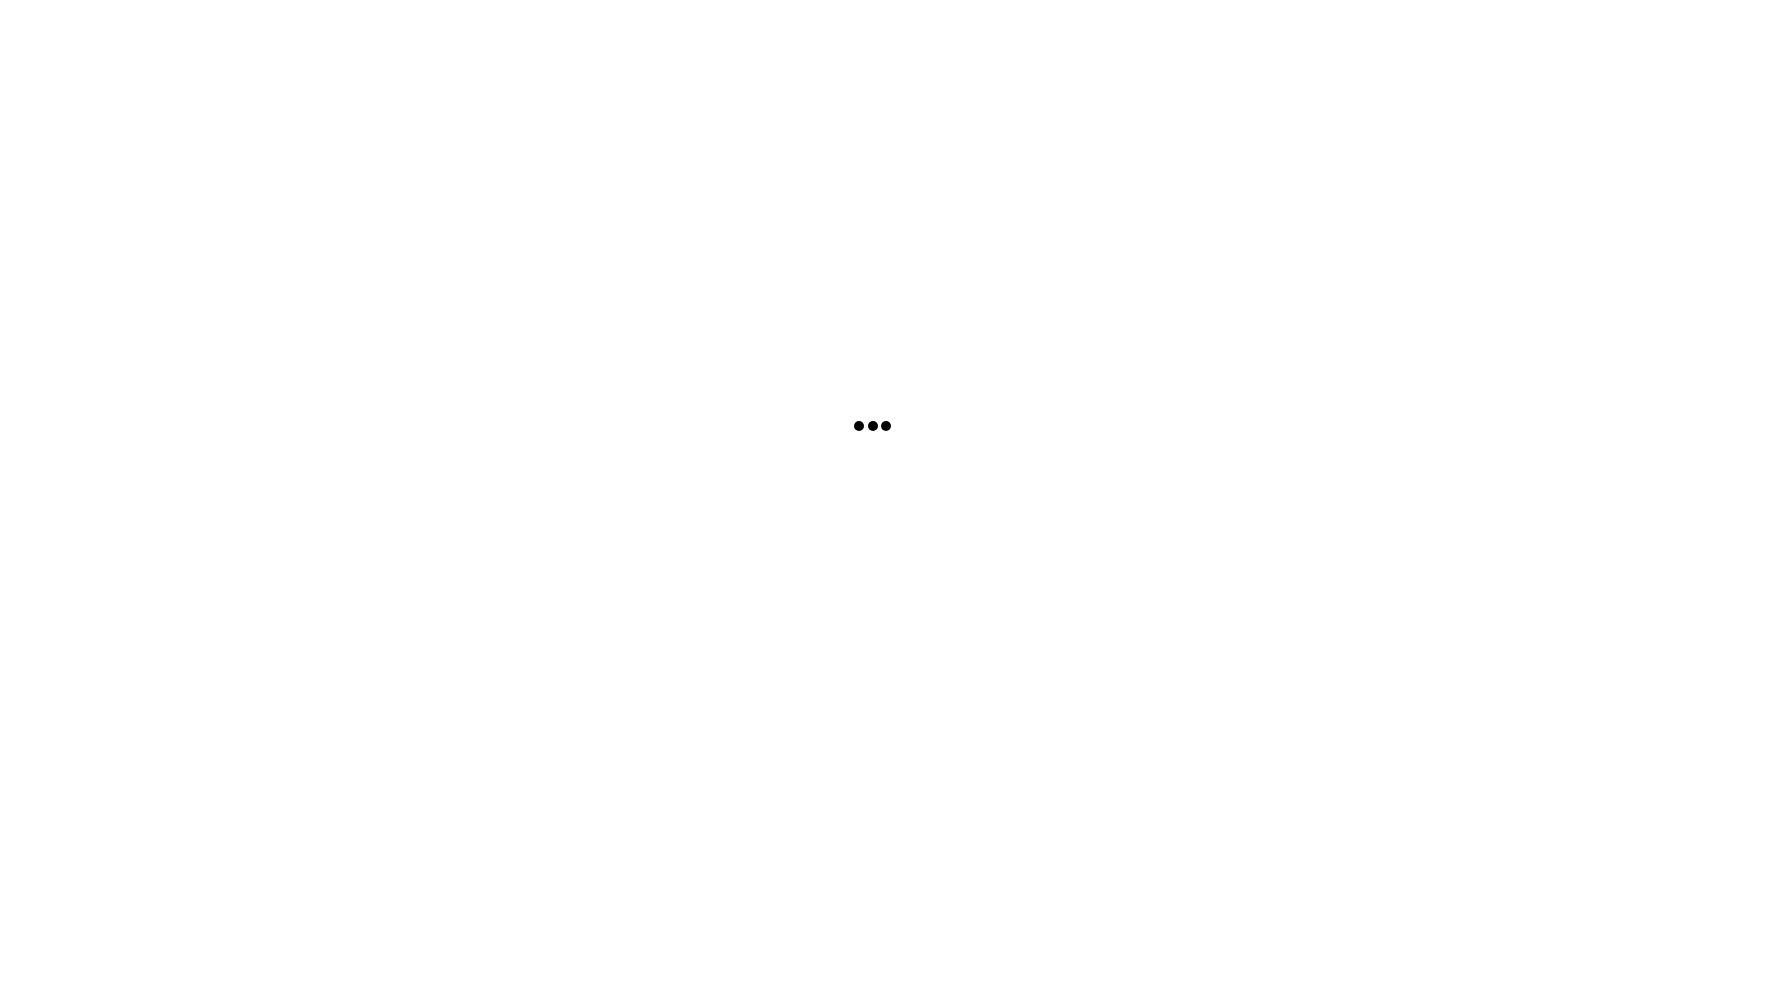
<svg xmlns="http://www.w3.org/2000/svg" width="1786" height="993">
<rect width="100%" height="100%" fill="#fff"/>
<circle fill="#000" cx="859" cy="426" r="5"/>
<circle fill="#000" cx="873" cy="426" r="5"/>
<circle fill="#000" cx="886" cy="426" r="5"/>
</svg>
